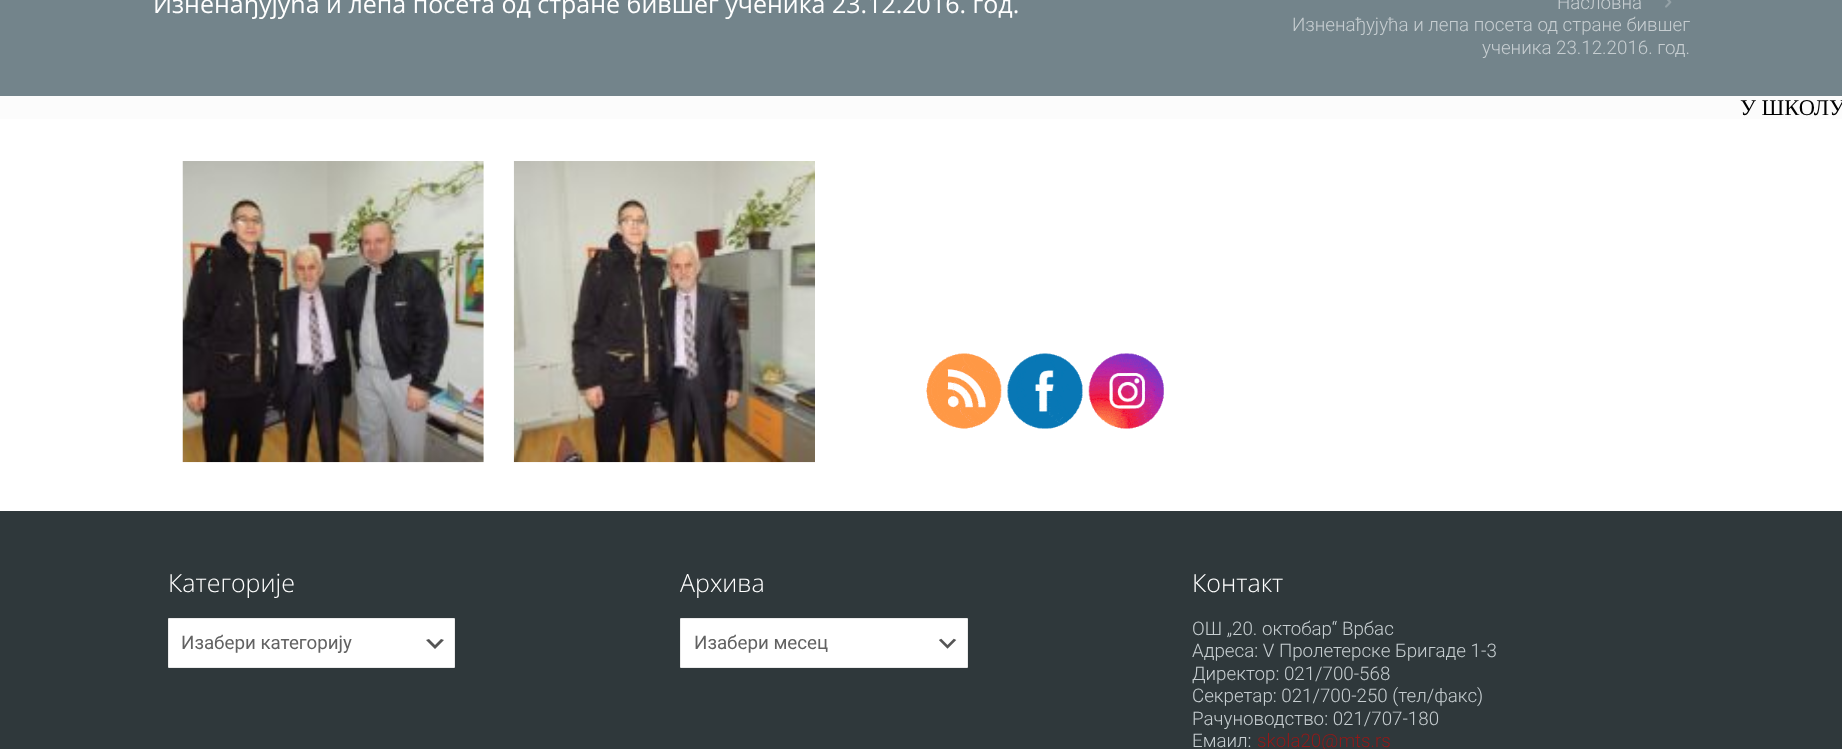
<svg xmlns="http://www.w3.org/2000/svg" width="1842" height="749">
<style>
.a{font:25px Open Sans;fill:#fff}
.b{font:300 18.75px Roboto;fill:#c7ced1}
.c{font:22.5px Liberation Serif;fill:#000}
.d{font:300 25px Open Sans;fill:#fff}
.e{font:18.75px Roboto;fill:#626262}
.f{font:300 18.75px Roboto;fill:#931919}
</style>
<rect width="100%" height="100%" fill="#fff"/>
<path fill="#73848b" d="M0 0h1842v96H0z"/>
<image href="1.png" x="1665" y="0" width="7" height="8"/>
<path fill="#fcfcfc" d="M0 96h1842v23H0z"/>
<image href="2.png" x="182" y="161" width="302" height="302"/>
<image href="3.png" x="513" y="161" width="302" height="302"/>
<path fill="#2f383b" d="M0 511h1842v238H0z"/>
<path fill="#fff" d="M169 619h285v48H169z"/>
<path fill="#555" d="M429 639l6 6l6-6l3 1l-9 9l-9-9z"/>
<path fill="none" stroke="#ebebeb" d="M168.5 618.5h286v49H168.5z"/>
<path fill="#fff" d="M681 619h286v48H681z"/>
<image href="4.png" x="939" y="638" width="18" height="11"/>
<path fill="none" stroke="#ebebeb" d="M680.5 618.5h287v49H680.5z"/>
<image href="5.png" x="926" y="353" width="76" height="76"/>
<image href="6.png" x="1007" y="353" width="76" height="76"/>
<image href="7.png" x="1088" y="353" width="76" height="76"/>
<text class="a" x="153" y="13">Изненађујућа и лепа посета од стране бившег ученика 23.12.2016. год.</text>
<text class="b" x="1557" y="9">Насловна</text>
<text class="b" x="1292" y="31">Изненађујућа и лепа посета од стране бившег</text>
<text class="b" x="1482" y="54">ученика 23.12.2016. год.</text>
<text class="c" x="1740" y="115">У ШКОЛУ</text>
<text class="d" x="168" y="592">Категорије</text>
<text class="e" x="181" y="649">Изабери категорију</text>
<text class="d" x="680" y="592">Архива</text>
<text class="e" x="694" y="649">Изабери месец</text>
<text class="d" x="1192" y="592">Контакт</text>
<text class="b" x="1192" y="635">ОШ „20. октобар“ Врбас</text>
<text class="b" x="1192" y="657">Адреса: V Пролетерске Бригаде 1-3</text>
<text class="b" x="1192" y="680">Директор: 021/700-568</text>
<text class="b" x="1192" y="702">Секретар: 021/700-250 (тел/факс)</text>
<text class="b" x="1192" y="725">Рачуноводство: 021/707-180</text>
<text class="b" x="1192" y="747">Емаил:</text>
<text class="f" x="1257" y="747">skola20@mts.rs</text>
</svg>
